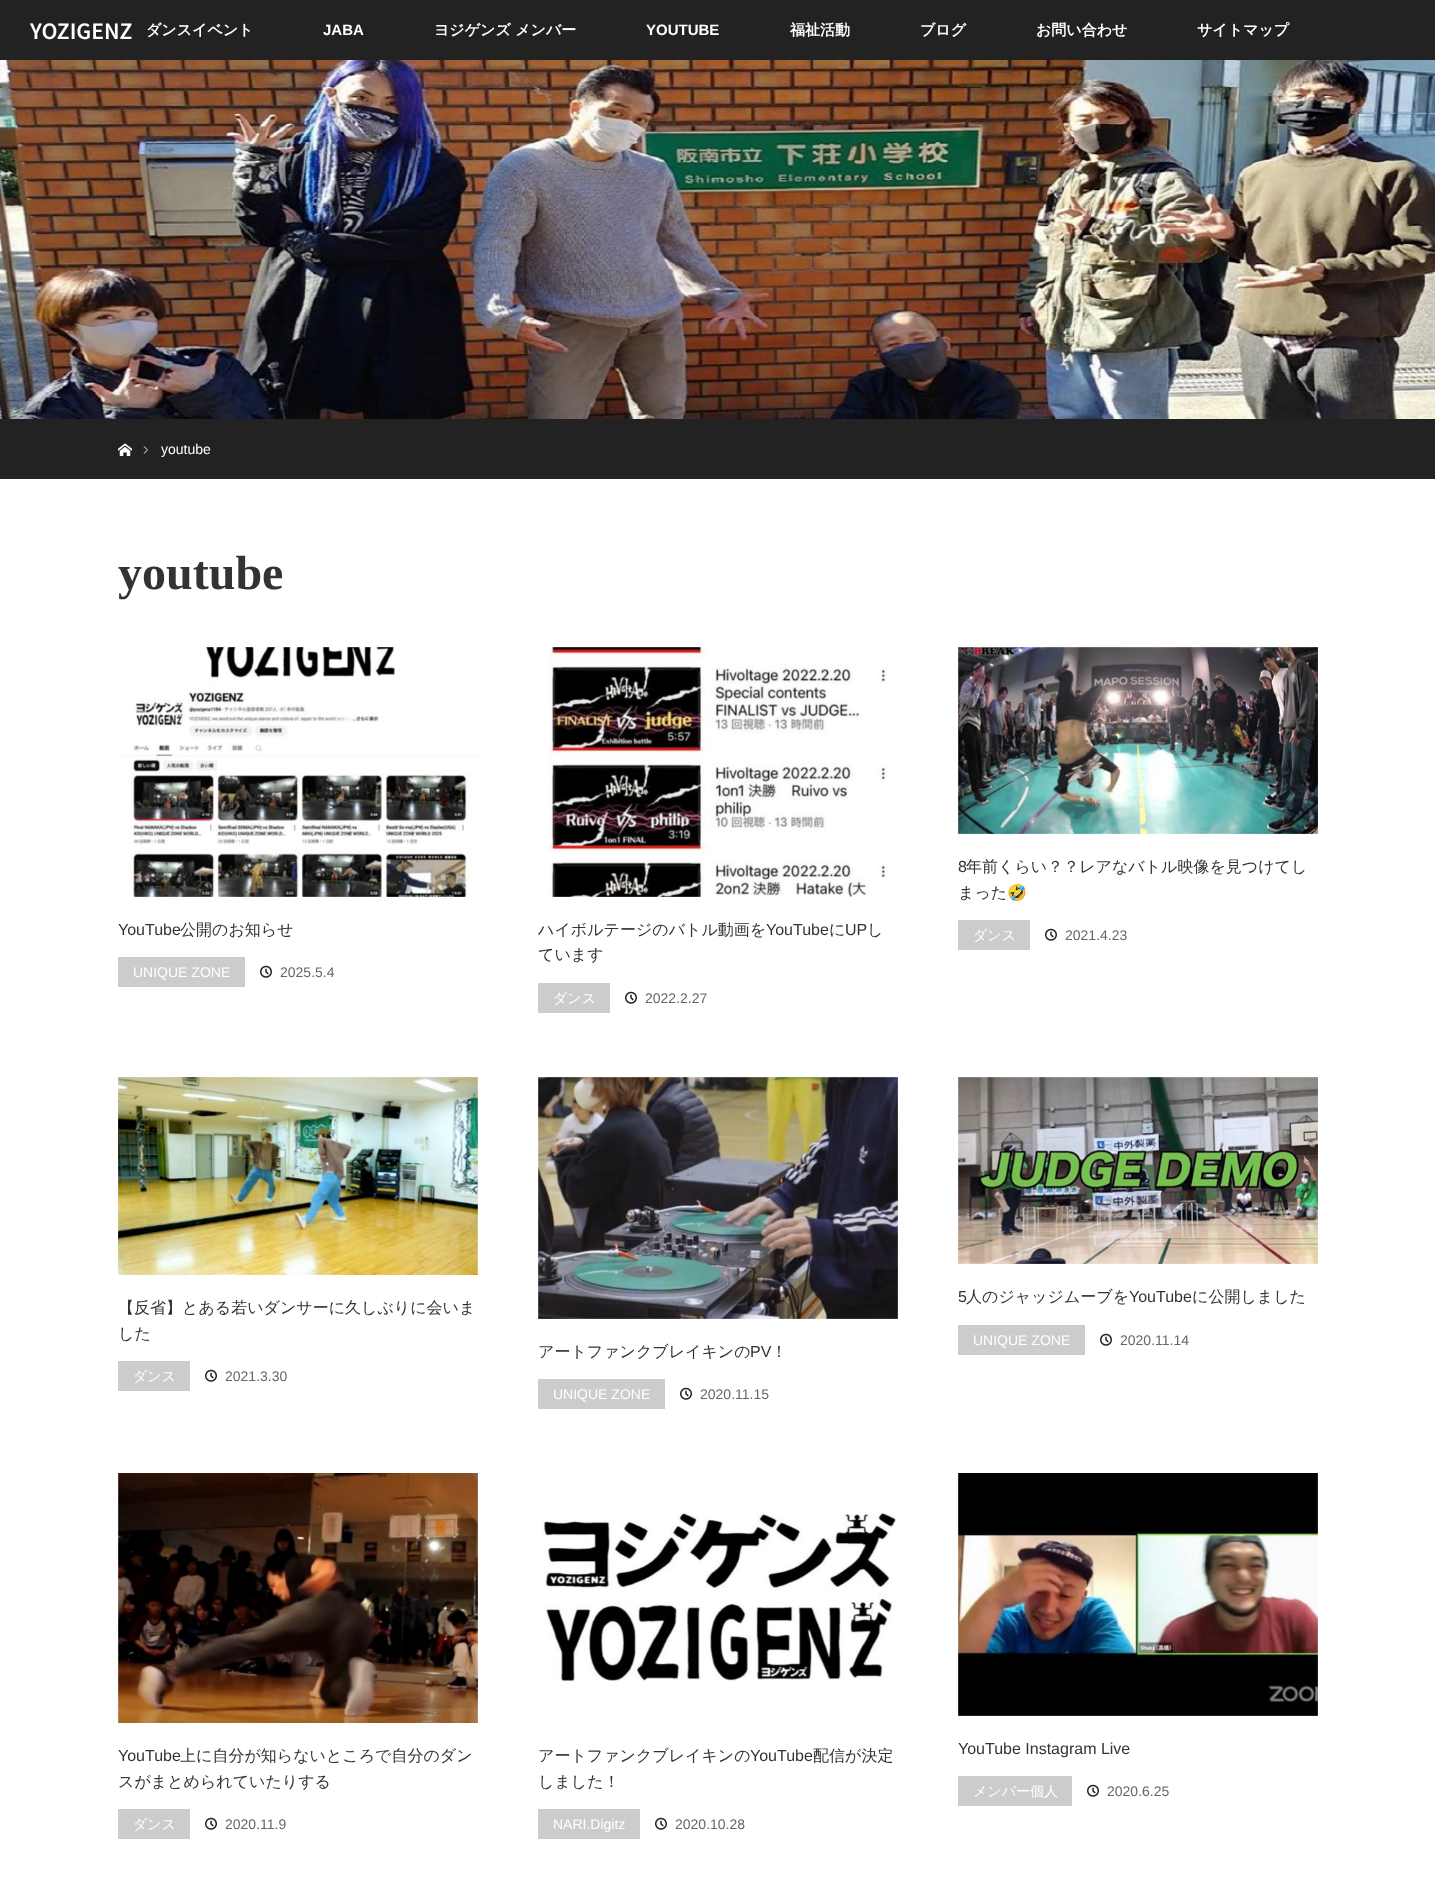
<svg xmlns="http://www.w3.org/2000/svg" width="1435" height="1889">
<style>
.a{font:600 21px Noto Sans JP;fill:#fff}
.b{font:bold 15px WenQuanYi Zen Hei;fill:#fff}
.c{font:bold 15px Liberation Sans;fill:#fff}
.d{font:14px Liberation Sans;fill:#fff}
.e{font:bold 48px Liberation Serif;fill:#333}
.f{font:16px Liberation Sans;fill:#333}
.g{font:500 16px WenQuanYi Zen Hei;fill:#333}
.h{font:16px Noto Color Emoji;fill:#333}
.i{font:500 14px WenQuanYi Zen Hei;fill:#fff}
.j{font:14px Liberation Sans;fill:#666}
</style>
<rect width="100%" height="100%" fill="#fff"/>
<path fill="#222" d="M0 0h1435v60H0z"/>
<image href="1.png" x="0" y="60" width="1435" height="359"/>
<path fill="#222" d="M0 419h1435v60H0z"/>
<image href="2.png" x="118" y="443" width="14" height="13"/>
<image href="3.png" x="143" y="446" width="5" height="8"/>
<image href="4.png" x="958" y="647" width="360" height="187"/>
<path fill="#ccc" d="M958 920h72v30H958z"/>
<image href="5.png" x="1045" y="928" width="12" height="13"/>
<image href="6.png" x="118" y="647" width="360" height="250"/>
<path fill="#ccc" d="M118 957h127v30H118z"/>
<image href="5.png" x="260" y="965" width="12" height="13"/>
<image href="7.png" x="548" y="647" width="339" height="250"/>
<path fill="#ccc" d="M538 983h72v30H538z"/>
<image href="5.png" x="625" y="991" width="12" height="13"/>
<image href="8.png" x="118" y="1077" width="360" height="198"/>
<path fill="#ccc" d="M118 1361h72v30H118z"/>
<image href="5.png" x="205" y="1369" width="12" height="13"/>
<image href="9.png" x="538" y="1077" width="360" height="242"/>
<path fill="#ccc" d="M538 1379h127v30H538z"/>
<image href="5.png" x="680" y="1387" width="12" height="13"/>
<image href="10.png" x="958" y="1077" width="360" height="187"/>
<path fill="#ccc" d="M958 1325h127v30H958z"/>
<image href="5.png" x="1100" y="1333" width="12" height="13"/>
<image href="11.png" x="118" y="1473" width="360" height="250"/>
<path fill="#ccc" d="M118 1809h72v30H118z"/>
<image href="5.png" x="205" y="1817" width="12" height="13"/>
<image href="12.png" x="542" y="1512" width="354" height="170"/>
<path fill="#ccc" d="M538 1809h102v30H538z"/>
<image href="5.png" x="655" y="1817" width="12" height="13"/>
<image href="13.png" x="958" y="1473" width="360" height="243"/>
<path fill="#ccc" d="M958 1776h114v30H958z"/>
<image href="5.png" x="1087" y="1784" width="12" height="13"/>
<text class="a" x="30" y="39">YOZIGENZ</text>
<text class="b" x="146" y="35">ダンスイベント</text>
<text class="c" x="323" y="35">JABA</text>
<text class="b" x="434" y="35">ヨジゲンズ メンバー</text>
<text class="c" x="646" y="35">YOUTUBE</text>
<text class="b" x="790" y="35">福祉活動</text>
<text class="b" x="920" y="35">ブログ</text>
<text class="b" x="1036" y="35">お問い合わせ</text>
<text class="b" x="1197" y="35">サイトマップ</text>
<text class="d" x="161" y="454">youtube</text>
<text class="e" x="118" y="589">youtube</text>
<text class="f" x="958" y="872">8</text>
<text class="g" x="966" y="872">年前くらい？？レアなバトル映像を見つけてし</text>
<text class="g" x="958" y="898">まった</text>
<text class="h" x="1007" y="898">🤣</text>
<text class="i" x="973" y="940">ダンス</text>
<text class="j" x="1065" y="940">2021.4.23</text>
<text class="f" x="118" y="935">YouTube</text>
<text class="g" x="180" y="935">公開のお知らせ</text>
<text class="d" x="133" y="977">UNIQUE ZONE</text>
<text class="j" x="280" y="977">2025.5.4</text>
<text class="g" x="538" y="935">ハイボルテージのバトル動画を</text>
<text class="f" x="766" y="935">YouTube</text>
<text class="g" x="829" y="935">に</text>
<text class="f" x="845" y="935">UP</text>
<text class="g" x="867" y="935">し</text>
<text class="g" x="538" y="960">ています</text>
<text class="i" x="553" y="1003">ダンス</text>
<text class="j" x="645" y="1003">2022.2.27</text>
<text class="g" x="118" y="1313">【反省】とある若いダンサーに久しぶりに会いま</text>
<text class="g" x="118" y="1339">した</text>
<text class="i" x="133" y="1381">ダンス</text>
<text class="j" x="225" y="1381">2021.3.30</text>
<text class="g" x="538" y="1357">アートファンクブレイキンの</text>
<text class="f" x="750" y="1357">PV</text>
<text class="g" x="771" y="1357">！</text>
<text class="d" x="553" y="1399">UNIQUE ZONE</text>
<text class="j" x="700" y="1399">2020.11.15</text>
<text class="f" x="958" y="1302">5</text>
<text class="g" x="966" y="1302">人のジャッジムーブを</text>
<text class="f" x="1129" y="1302">YouTube</text>
<text class="g" x="1192" y="1302">に公開しました</text>
<text class="d" x="973" y="1345">UNIQUE ZONE</text>
<text class="j" x="1120" y="1345">2020.11.14</text>
<text class="f" x="118" y="1761">YouTube</text>
<text class="g" x="180" y="1761">上に自分が知らないところで自分のダン</text>
<text class="g" x="118" y="1787">スがまとめられていたりする</text>
<text class="i" x="133" y="1829">ダンス</text>
<text class="j" x="225" y="1829">2020.11.9</text>
<text class="g" x="538" y="1761">アートファンクブレイキンの</text>
<text class="f" x="750" y="1761">YouTube</text>
<text class="g" x="813" y="1761">配信が決定</text>
<text class="g" x="538" y="1787">しました！</text>
<text class="d" x="553" y="1829">NARI.Digitz</text>
<text class="j" x="675" y="1829">2020.10.28</text>
<text class="f" x="958" y="1754">YouTube Instagram Live</text>
<text class="i" x="973" y="1796">メンバー個人</text>
<text class="j" x="1107" y="1796">2020.6.25</text>
</svg>
